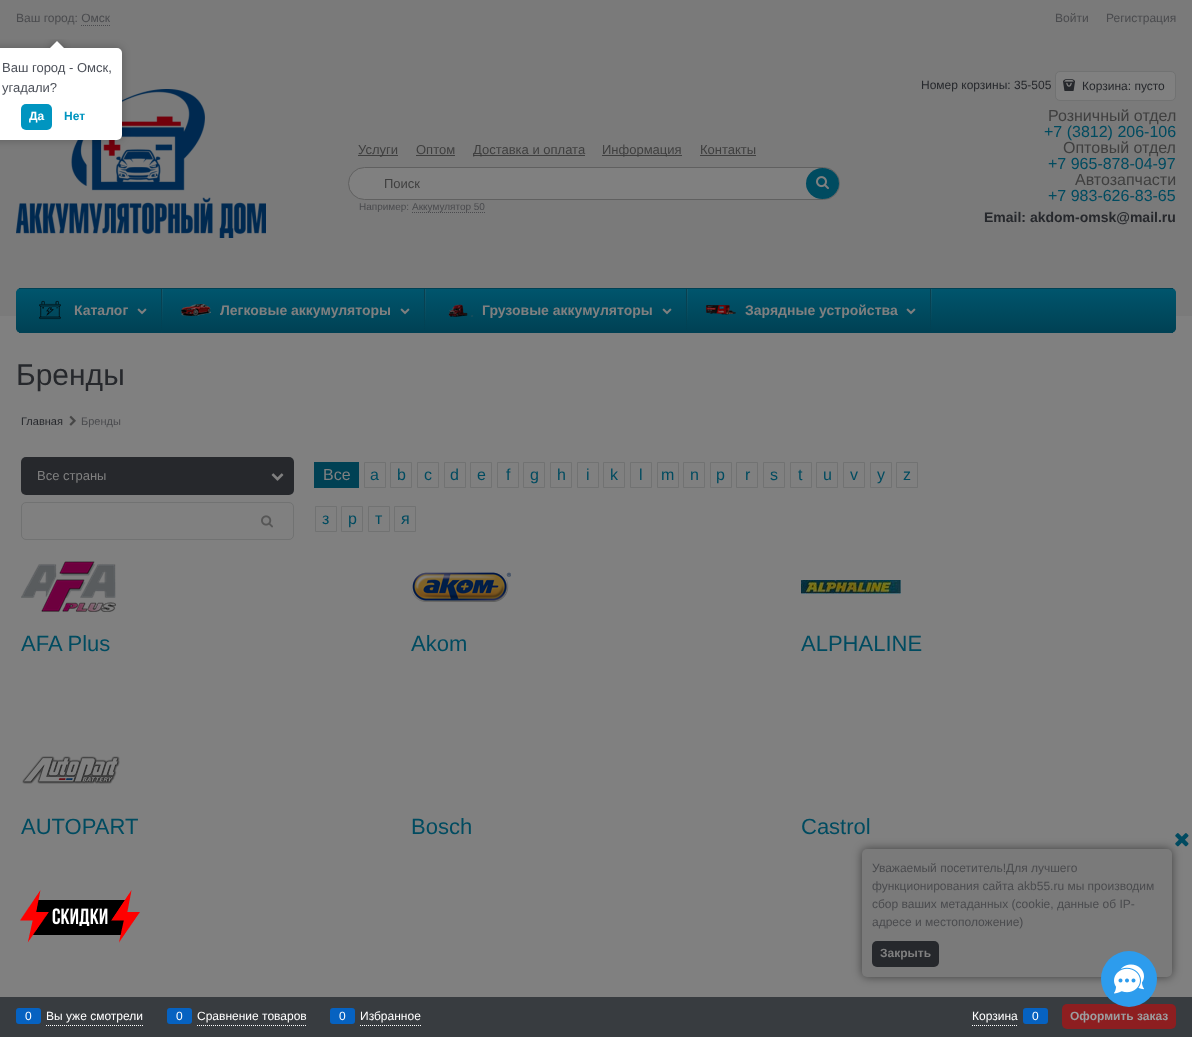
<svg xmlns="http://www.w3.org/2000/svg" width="1192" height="1037">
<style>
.a{font:12px Liberation Sans;fill:#4a4b4e}
.b{font:13px Liberation Sans;fill:#3f3f3f}
.c{font:10px Liberation Sans;fill:#4a4b4e}
.d{font:12px Liberation Sans;fill:#26282c}
.e{font:16px Liberation Sans;fill:#3f3f3f}
.f{font:16px Liberation Sans;fill:#004b60}
.g{font:bold 14px Liberation Sans;fill:#26282c}
.h{font:bold 14px Liberation Sans;fill:#808080}
.i{font:30px Liberation Sans;fill:#26282c}
.j{font:11px Liberation Sans;fill:#26282c}
.k{font:11px Liberation Sans;fill:#4a4b4e}
.l{font:13px Liberation Sans;fill:#808080}
.m{font:16px Liberation Sans;fill:#808080}
.n{font:22px Liberation Sans;fill:#004b60}
.o{font:12px Liberation Sans;fill:#fff}
.p{font:bold 12px Liberation Sans;fill:#9c9ea0}
.q{font:13px Liberation Sans;fill:#4b4f58}
.r{font:bold 12px Liberation Sans;fill:#fff}
.s{font:bold 12px Liberation Sans;fill:#0095c0}
.t{font:bold 12px Liberation Sans;fill:#808080}
</style>
<defs>
<linearGradient id="g1" gradientUnits="userSpaceOnUse" x1="596" y1="288" x2="596" y2="333"><stop offset="0" stop-color="#00556d"/><stop offset="0.5" stop-color="#004b60"/><stop offset="1" stop-color="#004154"/></linearGradient>
<clipPath id="clip1"><rect x="16" y="288" width="1160" height="45" rx="6"/></clipPath>
<linearGradient id="g2" gradientUnits="userSpaceOnUse" x1="596" y1="289" x2="596" y2="332"><stop offset="0" stop-color="#00556d"/><stop offset="0.5" stop-color="#004b60"/><stop offset="1" stop-color="#004154"/></linearGradient>
<linearGradient id="g3" gradientUnits="userSpaceOnUse" x1="163" y1="289" x2="163" y2="333"><stop offset="0" stop-color="#808080" stop-opacity="0.14"/><stop offset="0.72" stop-color="#808080" stop-opacity="0.02"/><stop offset="1" stop-color="#808080" stop-opacity="0"/></linearGradient>
<linearGradient id="g4" gradientUnits="userSpaceOnUse" x1="162" y1="289" x2="162" y2="333"><stop offset="0" stop-color="#1d1d1d" stop-opacity="0.39"/><stop offset="0.17" stop-color="#1d1d1d" stop-opacity="0.33"/><stop offset="0.61" stop-color="#1d1d1d" stop-opacity="0.12"/><stop offset="0.96" stop-color="#1d1d1d" stop-opacity="0.01"/><stop offset="0.98" stop-color="#808080" stop-opacity="0.01"/><stop offset="1" stop-color="#808080" stop-opacity="0"/></linearGradient>
<linearGradient id="g5" gradientUnits="userSpaceOnUse" x1="426" y1="289" x2="426" y2="333"><stop offset="0" stop-color="#808080" stop-opacity="0.14"/><stop offset="0.72" stop-color="#808080" stop-opacity="0.02"/><stop offset="1" stop-color="#808080" stop-opacity="0"/></linearGradient>
<linearGradient id="g6" gradientUnits="userSpaceOnUse" x1="425" y1="289" x2="425" y2="333"><stop offset="0" stop-color="#1d1d1d" stop-opacity="0.39"/><stop offset="0.17" stop-color="#1d1d1d" stop-opacity="0.33"/><stop offset="0.61" stop-color="#1d1d1d" stop-opacity="0.12"/><stop offset="0.96" stop-color="#1d1d1d" stop-opacity="0.01"/><stop offset="0.98" stop-color="#808080" stop-opacity="0.01"/><stop offset="1" stop-color="#808080" stop-opacity="0"/></linearGradient>
<linearGradient id="g7" gradientUnits="userSpaceOnUse" x1="688" y1="289" x2="688" y2="333"><stop offset="0" stop-color="#808080" stop-opacity="0.14"/><stop offset="0.72" stop-color="#808080" stop-opacity="0.02"/><stop offset="1" stop-color="#808080" stop-opacity="0"/></linearGradient>
<linearGradient id="g8" gradientUnits="userSpaceOnUse" x1="687" y1="289" x2="687" y2="333"><stop offset="0" stop-color="#1d1d1d" stop-opacity="0.39"/><stop offset="0.17" stop-color="#1d1d1d" stop-opacity="0.33"/><stop offset="0.61" stop-color="#1d1d1d" stop-opacity="0.12"/><stop offset="0.96" stop-color="#1d1d1d" stop-opacity="0.01"/><stop offset="0.98" stop-color="#808080" stop-opacity="0.01"/><stop offset="1" stop-color="#808080" stop-opacity="0"/></linearGradient>
<linearGradient id="g9" gradientUnits="userSpaceOnUse" x1="932" y1="289" x2="932" y2="333"><stop offset="0" stop-color="#808080" stop-opacity="0.14"/><stop offset="0.72" stop-color="#808080" stop-opacity="0.02"/><stop offset="1" stop-color="#808080" stop-opacity="0"/></linearGradient>
<linearGradient id="g10" gradientUnits="userSpaceOnUse" x1="931" y1="289" x2="931" y2="333"><stop offset="0" stop-color="#1d1d1d" stop-opacity="0.39"/><stop offset="0.17" stop-color="#1d1d1d" stop-opacity="0.33"/><stop offset="0.61" stop-color="#1d1d1d" stop-opacity="0.12"/><stop offset="0.96" stop-color="#1d1d1d" stop-opacity="0.01"/><stop offset="0.98" stop-color="#808080" stop-opacity="0.01"/><stop offset="1" stop-color="#808080" stop-opacity="0"/></linearGradient>
<clipPath id="clip2"><path d="M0 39h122v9H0z"/></clipPath>
<clipPath id="clip3"><path d="M0 39h122v9H0z"/></clipPath>
</defs>
<rect width="100%" height="100%" fill="#808080"/>
<path fill="#7a7a7a" d="M0 0h1192v316H0z"/>
<path fill="none" stroke="#4a4b4e" stroke-dasharray="1 1" d="M81 25.5h29"/>
<image href="1.png" x="16" y="89" width="250" height="149"/>
<path fill="#3f3f3f" d="M358 155h40v1H358z"/>
<path fill="#3f3f3f" d="M416 155h39v1H416z"/>
<path fill="#3f3f3f" d="M473 155h112v1H473z"/>
<path fill="#3f3f3f" d="M602 155h80v1H602z"/>
<path fill="#3f3f3f" d="M700 155h56v1H700z"/>
<rect fill="#808080" stroke="#606060" x="348.5" y="167.5" width="491" height="32" rx="16"/>
<path fill="none" stroke="#4a4b4e" stroke-dasharray="1 1" d="M412 212.5h73"/>
<ellipse fill="#004b60" cx="822.5" cy="183.5" rx="16.5" ry="15.5"/>
<image href="2.png" x="816" y="176" width="13" height="14"/>
<rect fill="#808080" stroke="#717272" x="1055.5" y="71.5" width="120" height="29" rx="4.5"/>
<image href="3.png" x="1063" y="79" width="12" height="12"/>
<rect fill="url(#g1)" x="16" y="288" width="1160" height="45" rx="5"/>
<g clip-path="url(#clip1)">
<path fill="url(#g2)" d="M16 289h1160v43H16z"/>
</g>
<path fill="#004154" d="M19 288h1154v1H19z"/>
<path fill="#004154" d="M19 332h1154v1H19z"/>
<image href="4.png" x="39" y="300" width="22" height="20"/>
<image href="5.png" x="137" y="308" width="10" height="7"/>
<path fill="url(#g3)" d="M162 289h1v31H162z"/>
<path fill="url(#g4)" d="M161 289h1v44H161z"/>
<image href="6.png" x="181" y="304" width="30" height="12"/>
<image href="5.png" x="400" y="308" width="10" height="7"/>
<path fill="url(#g5)" d="M425 289h1v31H425z"/>
<path fill="url(#g6)" d="M424 289h1v44H424z"/>
<image href="7.png" x="448" y="304" width="26" height="13"/>
<image href="5.png" x="662" y="308" width="10" height="7"/>
<path fill="url(#g7)" d="M687 289h1v31H687z"/>
<path fill="url(#g8)" d="M686 289h1v44H686z"/>
<image href="8.png" x="706" y="305" width="30" height="10"/>
<image href="5.png" x="906" y="308" width="10" height="7"/>
<path fill="url(#g9)" d="M931 289h1v31H931z"/>
<path fill="url(#g10)" d="M930 289h1v44H930z"/>
<image href="9.png" x="69" y="415" width="7" height="11"/>
<rect fill="#26282c" x="21" y="457" width="273" height="38" rx="5"/>
<image href="10.png" x="271" y="473" width="13" height="8"/>
<rect fill="none" stroke="#717272" x="21.5" y="502.5" width="272" height="37" rx="4.5"/>
<image href="11.png" x="261" y="515" width="12" height="13"/>
<path fill="#004154" d="M314 462h45v26H314z"/>
<path fill="none" stroke="#717272" d="M364.5 462.5h21v25H364.5z"/>
<path fill="none" stroke="#717272" d="M390.5 462.5h21v25H390.5z"/>
<path fill="none" stroke="#717272" d="M417.5 462.5h21v25H417.5z"/>
<path fill="none" stroke="#717272" d="M444.5 462.5h21v25H444.5z"/>
<path fill="none" stroke="#717272" d="M470.5 462.5h21v25H470.5z"/>
<path fill="none" stroke="#717272" d="M497.5 462.5h21v25H497.5z"/>
<path fill="none" stroke="#717272" d="M523.5 462.5h21v25H523.5z"/>
<path fill="none" stroke="#717272" d="M550.5 462.5h21v25H550.5z"/>
<path fill="none" stroke="#717272" d="M577.5 462.5h21v25H577.5z"/>
<path fill="none" stroke="#717272" d="M603.5 462.5h21v25H603.5z"/>
<path fill="none" stroke="#717272" d="M630.5 462.5h21v25H630.5z"/>
<path fill="none" stroke="#717272" d="M657.5 462.5h21v25H657.5z"/>
<path fill="none" stroke="#717272" d="M683.5 462.5h21v25H683.5z"/>
<path fill="none" stroke="#717272" d="M710.5 462.5h21v25H710.5z"/>
<path fill="none" stroke="#717272" d="M736.5 462.5h21v25H736.5z"/>
<path fill="none" stroke="#717272" d="M763.5 462.5h21v25H763.5z"/>
<path fill="none" stroke="#717272" d="M790.5 462.5h21v25H790.5z"/>
<path fill="none" stroke="#717272" d="M816.5 462.5h21v25H816.5z"/>
<path fill="none" stroke="#717272" d="M843.5 462.5h21v25H843.5z"/>
<path fill="none" stroke="#717272" d="M870.5 462.5h21v25H870.5z"/>
<path fill="none" stroke="#717272" d="M896.5 462.5h21v25H896.5z"/>
<path fill="none" stroke="#717272" d="M315.5 506.5h21v25H315.5z"/>
<path fill="none" stroke="#717272" d="M341.5 506.5h21v25H341.5z"/>
<path fill="none" stroke="#717272" d="M368.5 506.5h21v25H368.5z"/>
<path fill="none" stroke="#717272" d="M394.5 506.5h21v25H394.5z"/>
<image href="12.png" x="21" y="561" width="95" height="51"/>
<image href="13.png" x="411" y="572" width="100" height="30"/>
<image href="14.png" x="801" y="580" width="100" height="14"/>
<image href="15.png" x="22" y="756" width="98" height="28"/>
<path fill="#383c40" d="M0 997h1192v40H0z"/>
<path fill="none" stroke="#fff" stroke-dasharray="1 1" d="M46 1025.5h97"/>
<rect fill="#0662c1" x="16" y="1008" width="25" height="16" rx="3"/>
<path fill="none" stroke="#fff" stroke-dasharray="1 1" d="M197 1025.5h109"/>
<rect fill="#0662c1" x="167" y="1008" width="25" height="16" rx="3"/>
<path fill="none" stroke="#fff" stroke-dasharray="1 1" d="M360 1025.5h61"/>
<rect fill="#0662c1" x="330" y="1008" width="25" height="16" rx="3"/>
<path fill="none" stroke="#fff" stroke-dasharray="1 1" d="M972 1025.5h46"/>
<rect fill="#0662c1" x="1023" y="1008" width="25" height="16" rx="3"/>
<rect fill="#8d1e20" x="1062" y="1004" width="114" height="25" rx="5"/>
<rect fill="#00000040" filter="blur(4.5px)" x="-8" y="48" width="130" height="92" rx="5"/>
<rect fill="#fff" x="-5" y="48" width="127" height="92" rx="5"/>
<g clip-path="url(#clip2)">
<path fill="#00000040" filter="blur(4.5px)" d="M52 43h10v10H52z"/>
</g>
<g clip-path="url(#clip3)">
<path fill="#fff" d="M57 41l7 7l-7 7l-7-7z"/>
</g>
<rect fill="#0095c0" x="21" y="104" width="31" height="26" rx="5"/>
<image href="16.png" x="20" y="890" width="120" height="53"/>
<rect fill="#00000080" filter="blur(5px)" x="862" y="849" width="310" height="128" rx="5"/>
<rect fill="#7a7a7a" x="862" y="849" width="310" height="128" rx="5"/>
<image href="17.png" x="1175" y="833" width="14" height="14"/>
<rect fill="#26282c" x="872" y="941" width="67" height="26" rx="5"/>
<circle fill="#2d9ced" cx="1129" cy="979" r="28"/>
<image href="18.png" x="1114" y="964" width="30" height="30"/>
<text class="a" x="16" y="22">Ваш город: Омск</text>
<text class="a" x="1055" y="22">Войти</text>
<text class="a" x="1106" y="22">Регистрация</text>
<text class="b" x="358" y="154">Услуги</text>
<text class="b" x="416" y="154">Оптом</text>
<text class="b" x="473" y="154">Доставка и оплата</text>
<text class="b" x="602" y="154">Информация</text>
<text class="b" x="700" y="154">Контакты</text>
<text class="b" x="384" y="188">Поиск</text>
<text class="c" x="359" y="210">Например:</text>
<text class="c" x="412" y="210">Аккумулятор 50</text>
<text class="d" x="921" y="89">Номер корзины: 35-505</text>
<text class="d" x="1082" y="90">Корзина: пусто</text>
<text class="e" x="1048" y="121">Розничный отдел</text>
<text class="f" x="1044" y="137">+7 (3812) 206-106</text>
<text class="e" x="1063" y="153">Оптовый отдел</text>
<text class="f" x="1048" y="169">+7 965-878-04-97</text>
<text class="e" x="1075" y="185">Автозапчасти</text>
<text class="f" x="1048" y="201">+7 983-626-83-65</text>
<text class="g" x="984" y="222">Email: akdom-omsk@mail.ru</text>
<text class="h" x="74" y="315">Каталог</text>
<text class="h" x="220" y="315">Легковые аккумуляторы</text>
<text class="h" x="482" y="315">Грузовые аккумуляторы</text>
<text class="h" x="745" y="315">Зарядные устройства</text>
<text class="i" x="16" y="385">Бренды</text>
<text class="j" x="21" y="425">Главная</text>
<text class="k" x="81" y="425">Бренды</text>
<text class="l" x="37" y="480">Все страны</text>
<text class="m" x="323" y="480">Все</text>
<text class="f" x="370" y="480">a</text>
<text class="f" x="397" y="480">b</text>
<text class="f" x="424" y="480">c</text>
<text class="f" x="450" y="480">d</text>
<text class="f" x="477" y="480">e</text>
<text class="f" x="506" y="480">f</text>
<text class="f" x="530" y="480">g</text>
<text class="f" x="557" y="480">h</text>
<text class="f" x="586" y="480">i</text>
<text class="f" x="610" y="480">k</text>
<text class="f" x="639" y="480">l</text>
<text class="f" x="661" y="480">m</text>
<text class="f" x="690" y="480">n</text>
<text class="f" x="716" y="480">p</text>
<text class="f" x="745" y="480">r</text>
<text class="f" x="770" y="480">s</text>
<text class="f" x="798" y="480">t</text>
<text class="f" x="823" y="480">u</text>
<text class="f" x="850" y="480">v</text>
<text class="f" x="877" y="480">y</text>
<text class="f" x="903" y="480">z</text>
<text class="f" x="322" y="524">з</text>
<text class="f" x="348" y="524">р</text>
<text class="f" x="375" y="524">т</text>
<text class="f" x="401" y="524">я</text>
<text class="n" x="21" y="651">AFA Plus</text>
<text class="n" x="411" y="651">Akom</text>
<text class="n" x="801" y="651">ALPHALINE</text>
<text class="n" x="21" y="834">AUTOPART</text>
<text class="n" x="411" y="834">Bosch</text>
<text class="n" x="801" y="834">Castrol</text>
<text class="o" x="25" y="1020">0</text>
<text class="o" x="46" y="1020">Вы уже смотрели</text>
<text class="o" x="176" y="1020">0</text>
<text class="o" x="197" y="1020">Сравнение товаров</text>
<text class="o" x="339" y="1020">0</text>
<text class="o" x="360" y="1020">Избранное</text>
<text class="o" x="972" y="1020">Корзина</text>
<text class="o" x="1032" y="1020">0</text>
<text class="p" x="1070" y="1020">Оформить заказ</text>
<text class="q" x="2" y="72">Ваш город - Омск,</text>
<text class="q" x="2" y="92">угадали?</text>
<text class="r" x="29" y="120">Да</text>
<text class="s" x="64" y="120">Нет</text>
<text class="a" x="872" y="872">Уважаемый посетитель!Для лучшего</text>
<text class="a" x="872" y="890">функционирования сайта akb55.ru мы производим</text>
<text class="a" x="872" y="908">сбор ваших метаданных (cookie, данные об IP-</text>
<text class="a" x="872" y="926">адресе и местоположение)</text>
<text class="t" x="880" y="957">Закрыть</text>
</svg>
